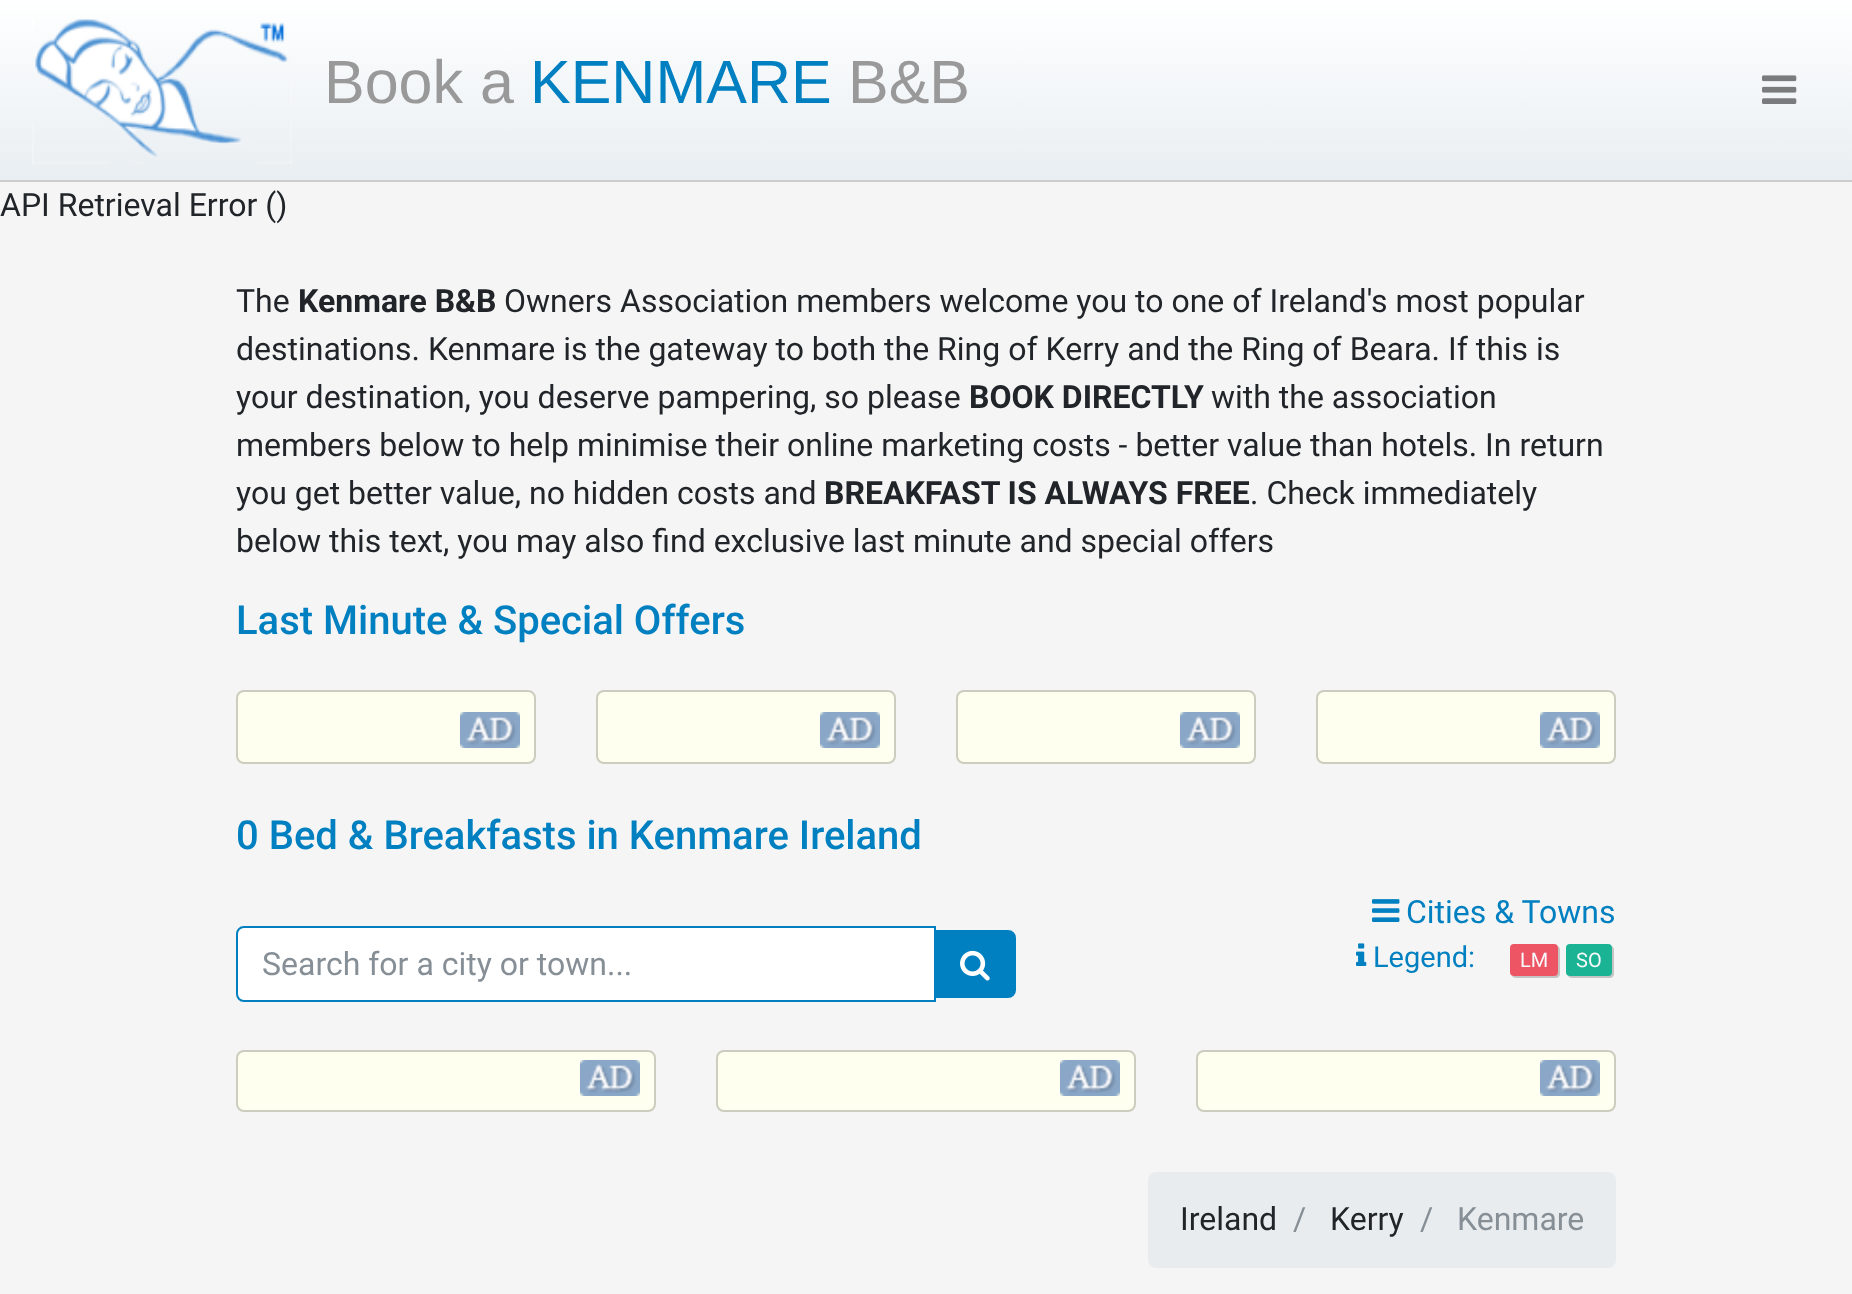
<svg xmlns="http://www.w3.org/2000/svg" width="1852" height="1294">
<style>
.a{font:61px Liberation Sans;fill:#999}
.b{font:61px Liberation Sans;fill:#0080c0}
.c{font:32px Roboto;fill:#212529}
.d{font:bold 32px Roboto;fill:#212529}
.e{font:500 40px Roboto;fill:#0080c0}
.f{font:32px Roboto;fill:#868e96}
.g{font:32px Roboto;fill:#0080c0}
.h{font:29px Roboto;fill:#0080c0}
.i{font:20px Roboto;fill:#f8f9fa}
</style>
<defs>
<linearGradient id="g1" gradientUnits="userSpaceOnUse" x1="926" y1="0" x2="926" y2="180"><stop offset="0.01" stop-color="#feffff"/><stop offset="1" stop-color="#e9eef2"/></linearGradient>
</defs>
<rect width="100%" height="100%" fill="#f5f5f5"/>
<path fill="url(#g1)" d="M0 0h1852v180H0z"/>
<path fill="#ccc" d="M0 180h1852v2H0z"/>
<image href="1.png" x="32" y="19" width="260" height="145"/>
<image href="2.png" x="1762" y="75" width="35" height="29"/>
<rect fill="#ffffef" x="236" y="690" width="300" height="74" rx="8"/>
<image href="3.png" x="460" y="712" width="60" height="36"/>
<rect fill="none" stroke="#00000033" stroke-width="2" x="237" y="691" width="298" height="72" rx="7"/>
<rect fill="#ffffef" x="596" y="690" width="300" height="74" rx="8"/>
<image href="3.png" x="820" y="712" width="60" height="36"/>
<rect fill="none" stroke="#00000033" stroke-width="2" x="597" y="691" width="298" height="72" rx="7"/>
<rect fill="#ffffef" x="956" y="690" width="300" height="74" rx="8"/>
<image href="3.png" x="1180" y="712" width="60" height="36"/>
<rect fill="none" stroke="#00000033" stroke-width="2" x="957" y="691" width="298" height="72" rx="7"/>
<rect fill="#ffffef" x="1316" y="690" width="300" height="74" rx="8"/>
<image href="3.png" x="1540" y="712" width="60" height="36"/>
<rect fill="none" stroke="#00000033" stroke-width="2" x="1317" y="691" width="298" height="72" rx="7"/>
<path fill="#fff" stroke="#0080c0" stroke-width="2" d="M244 927h691v74h-691c-4 0-7-3-7-7v-60c0-4 3-7 7-7z"/>
<path fill="#0080c0" stroke="#0080c0" stroke-width="2" d="M935 931h73c4 0 7 3 7 7v52c0 4-3 7-7 7h-73z"/>
<image href="4.png" x="960" y="950" width="30" height="31"/>
<image href="5.png" x="1372" y="899" width="28" height="23"/>
<image href="6.png" x="1356" y="943" width="11" height="23"/>
<path fill="#c4c4c4" d="M1512 976c1 1 2 2 4 2h40c2 0 4-2 4-4v-24c0-2-1-3-2-4v18c0 12 1 12-11 12z"/>
<rect fill="#ed5565" x="1510" y="944" width="48" height="32" rx="4"/>
<path fill="#c4c4c4" d="M1568 976c1 1 2 2 4 2h38c2 0 4-2 4-4v-24c0-2-1-3-2-4v18c0 11 1 12-10 12z"/>
<rect fill="#1ab394" x="1566" y="944" width="46" height="32" rx="4"/>
<rect fill="#ffffef" x="236" y="1050" width="420" height="62" rx="8"/>
<image href="3.png" x="580" y="1060" width="60" height="36"/>
<rect fill="none" stroke="#00000033" stroke-width="2" x="237" y="1051" width="418" height="60" rx="7"/>
<rect fill="#ffffef" x="716" y="1050" width="420" height="62" rx="8"/>
<image href="3.png" x="1060" y="1060" width="60" height="36"/>
<rect fill="none" stroke="#00000033" stroke-width="2" x="717" y="1051" width="418" height="60" rx="7"/>
<rect fill="#ffffef" x="1196" y="1050" width="420" height="62" rx="8"/>
<image href="3.png" x="1540" y="1060" width="60" height="36"/>
<rect fill="none" stroke="#00000033" stroke-width="2" x="1197" y="1051" width="418" height="60" rx="7"/>
<rect fill="#e9ecef" x="1148" y="1172" width="468" height="96" rx="8"/>
<text class="a" x="324" y="103">Book a</text>
<text class="b" x="530" y="103">KENMARE</text>
<text class="a" x="848" y="103">B&amp;B</text>
<text class="c" x="0" y="216">API Retrieval Error ()</text>
<text class="c" x="236" y="312">The</text>
<text class="d" x="298" y="312">Kenmare B&amp;B</text>
<text class="c" x="504" y="312">Owners Association members welcome you to one of Ireland's most popular</text>
<text class="c" x="236" y="360">destinations. Kenmare is the gateway to both the Ring of Kerry and the Ring of Beara. If this is</text>
<text class="c" x="236" y="408">your destination, you deserve pampering, so please</text>
<text class="d" x="969" y="408">BOOK DIRECTLY</text>
<text class="c" x="1211" y="408">with the association</text>
<text class="c" x="236" y="456">members below to help minimise their online marketing costs - better value than hotels. In return</text>
<text class="c" x="236" y="504">you get better value, no hidden costs and</text>
<text class="d" x="824" y="504">BREAKFAST IS ALWAYS FREE</text>
<text class="c" x="1250" y="504">. Check immediately</text>
<text class="c" x="236" y="552">below this text, you may also find exclusive last minute and special offers</text>
<text class="e" x="236" y="634">Last Minute &amp; Special Offers</text>
<text class="e" x="236" y="849">0 Bed &amp; Breakfasts in Kenmare Ireland</text>
<text class="f" x="262" y="975">Search for a city or town...</text>
<text class="g" x="1406" y="923">Cities &amp; Towns</text>
<text class="h" x="1373" y="967">Legend:</text>
<text class="i" x="1520" y="967">LM</text>
<text class="i" x="1576" y="967">SO</text>
<text class="c" x="1180" y="1230">Ireland</text>
<text class="f" x="1293" y="1230">/</text>
<text class="c" x="1330" y="1230">Kerry</text>
<text class="f" x="1420" y="1230">/</text>
<text class="f" x="1457" y="1230">Kenmare</text>
</svg>
